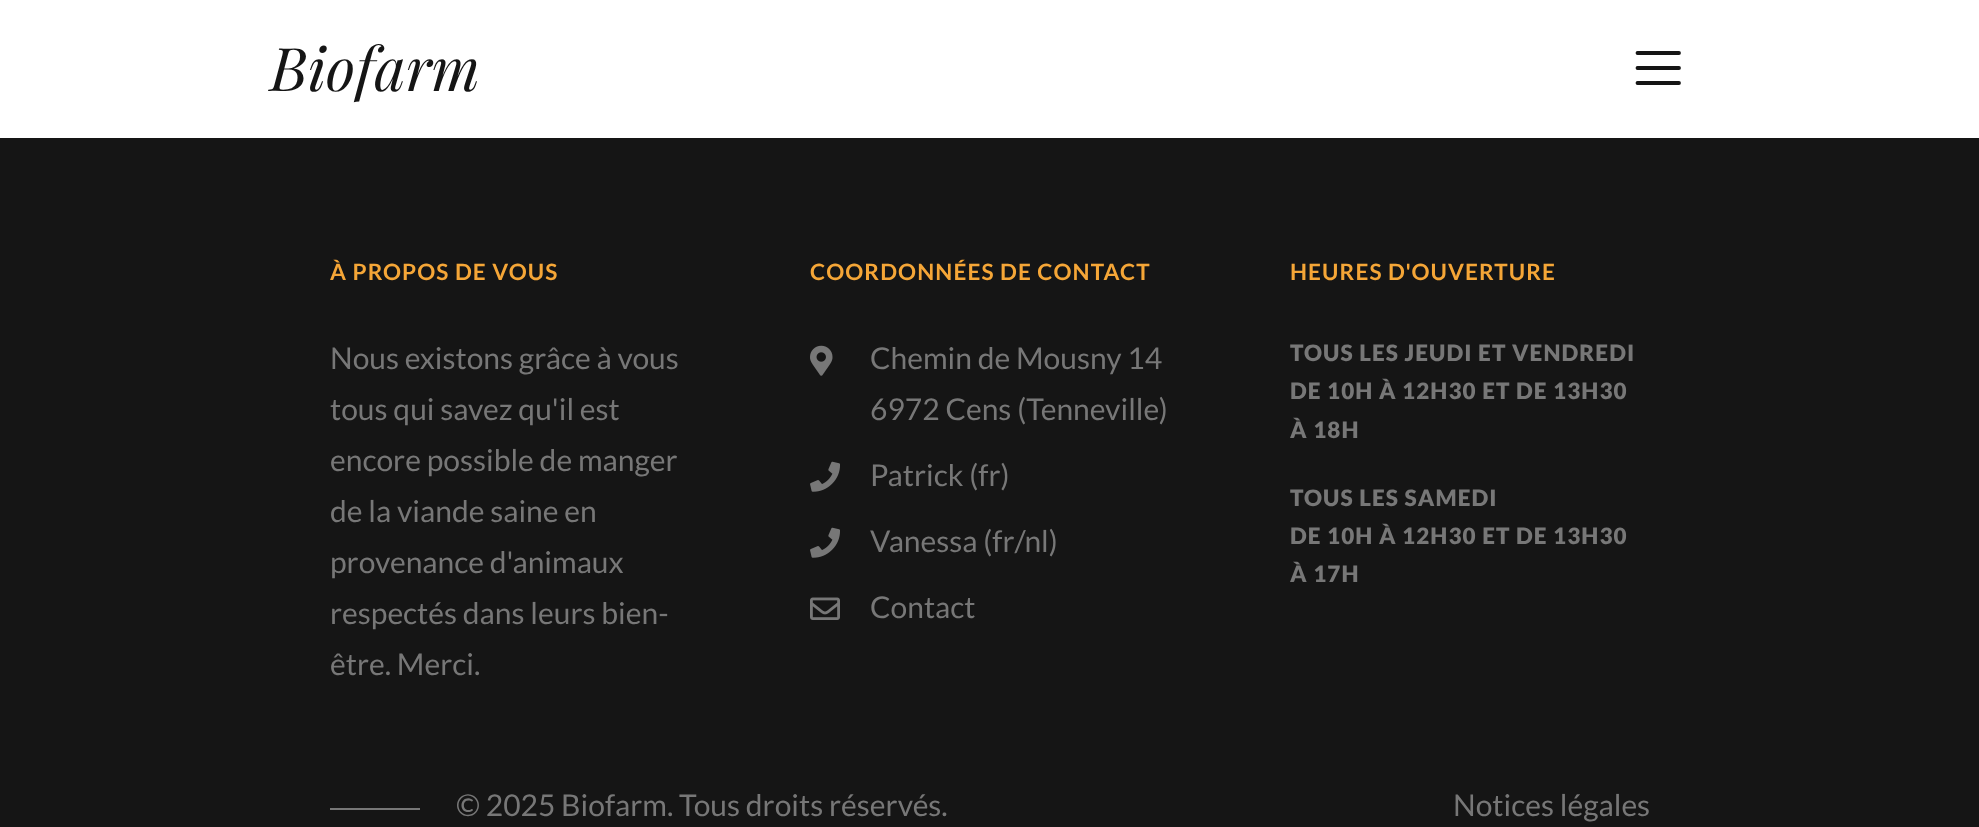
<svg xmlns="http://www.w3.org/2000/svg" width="1979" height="827">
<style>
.a{font:italic 60px Playfair Display;fill:#151515}
.b{font:bold 22.5px Lato;letter-spacing:1.1px;fill:#f5a637}
.c{font:30px Lato;fill:#777}
.d{font:900 22.5px Lato;letter-spacing:1.1px;fill:#777}
</style>
<rect width="100%" height="100%" fill="#151515"/>
<path fill="#fff" d="M0 0h1979v138H0z"/>
<path fill="none" stroke="#151515" stroke-width="3.8" stroke-linecap="round" d="M1637.5 53h41.5m-41.5 15h41.5m-41.5 15h41.5"/>
<image href="1.png" x="810" y="345" width="23" height="31"/>
<image href="2.png" x="810" y="461" width="30" height="31"/>
<image href="2.png" x="810" y="527" width="30" height="31"/>
<image href="3.png" x="810" y="597" width="30" height="23"/>
<path fill="#777" d="M330 808h90v2H330z"/>
<text class="a" x="270" y="91">Biofarm</text>
<text class="b" x="330" y="280">À PROPOS DE VOUS</text>
<text class="c" x="330" y="369">Nous existons grâce à vous</text>
<text class="c" x="330" y="420">tous qui savez qu'il est</text>
<text class="c" x="330" y="471">encore possible de manger</text>
<text class="c" x="330" y="522">de la viande saine en</text>
<text class="c" x="330" y="573">provenance d'animaux</text>
<text class="c" x="330" y="624">respectés dans leurs bien-</text>
<text class="c" x="330" y="675">être. Merci.</text>
<text class="b" x="810" y="280">COORDONNÉES DE CONTACT</text>
<text class="c" x="870" y="369">Chemin de Mousny 14</text>
<text class="c" x="870" y="420">6972 Cens (Tenneville)</text>
<text class="c" x="870" y="486">Patrick (fr)</text>
<text class="c" x="870" y="552">Vanessa (fr/nl)</text>
<text class="c" x="870" y="618">Contact</text>
<text class="b" x="1290" y="280">HEURES D'OUVERTURE</text>
<text class="d" x="1290" y="361">TOUS LES JEUDI ET VENDREDI</text>
<text class="d" x="1290" y="399">DE 10H À 12H30 ET DE 13H30</text>
<text class="d" x="1290" y="438">À 18H</text>
<text class="d" x="1290" y="506">TOUS LES SAMEDI</text>
<text class="d" x="1290" y="544">DE 10H À 12H30 ET DE 13H30</text>
<text class="d" x="1290" y="582">À 17H</text>
<text class="c" x="456" y="816">© 2025 Biofarm. Tous droits réservés.</text>
<text class="c" x="1453" y="816">Notices légales</text>
</svg>
